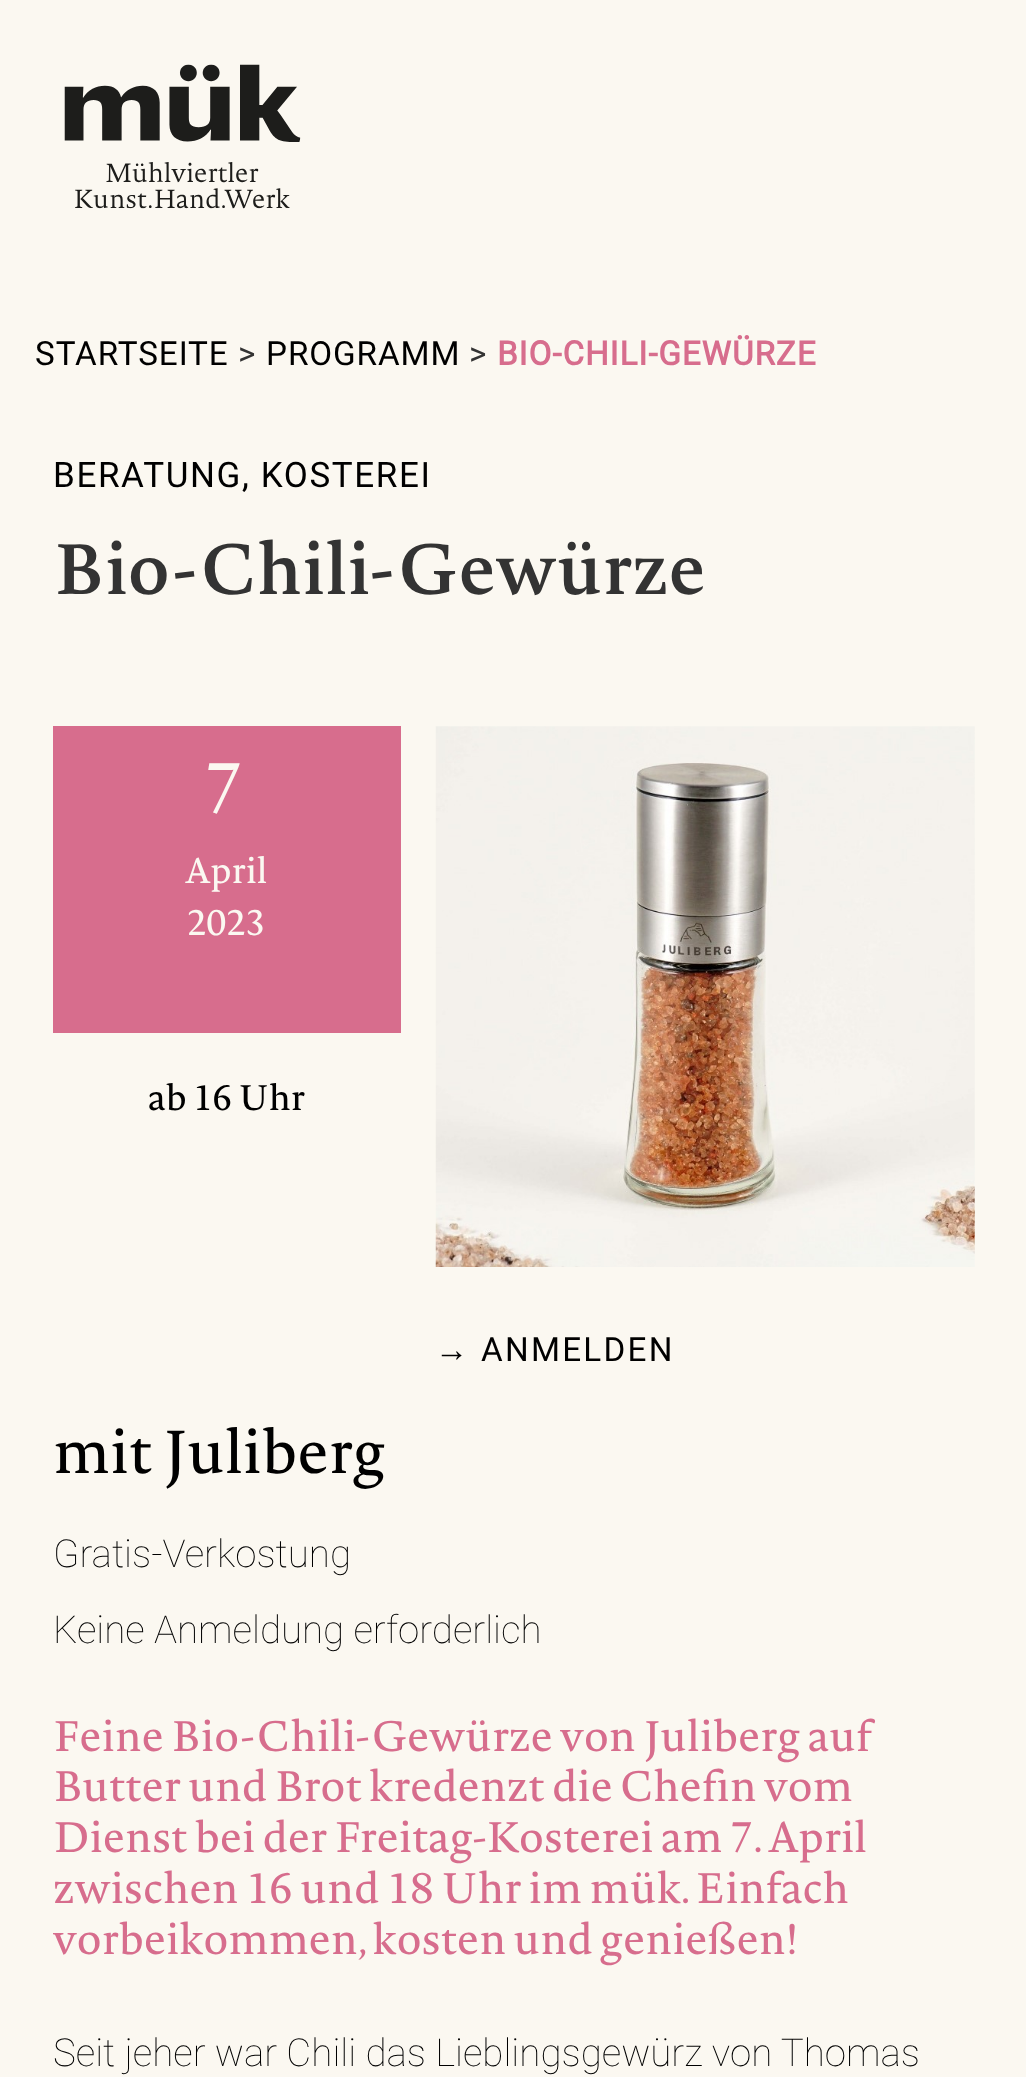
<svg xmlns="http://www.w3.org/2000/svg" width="1026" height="2077">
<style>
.a{font:33.25px Roboto;letter-spacing:0.9px;fill:#000}
.b{font:33.25px Roboto;letter-spacing:0.9px;fill:#333}
.c{font:bold 33.25px Roboto;letter-spacing:0.9px;fill:#d76d8d}
.d{font:35px Roboto;letter-spacing:1.6px;fill:#000}
.e{font:600 70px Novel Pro;letter-spacing:0.3px;fill:#333}
.f{font:70px Novel Pro;letter-spacing:6px;fill:#fbf8f1}
.g{font:35px Novel Pro;fill:#fbf8f1}
.h{font:35px Novel Pro;fill:#000}
.i{font:33.25px Liberation Sans;letter-spacing:2.25px;fill:#000}
.j{font:33.25px Roboto;letter-spacing:2.25px;fill:#000}
.k{font:59.5px Novel Pro;fill:#000}
.l{font:100 38.5px Roboto;fill:#000}
.m{font:42px Novel Pro;fill:#d76d8d}
</style>
<rect width="100%" height="100%" fill="#fbf8f1"/>
<image href="1.png" x="64" y="64" width="237" height="145"/>
<path fill="#d76d8d" d="M53 726h348v307H53z"/>
<image href="2.png" x="435" y="726" width="540" height="541"/>
<text class="a" x="35" y="365">STARTSEITE</text>
<text class="b" x="238" y="365">&gt;</text>
<text class="a" x="266" y="365">PROGRAMM</text>
<text class="b" x="469" y="365">&gt;</text>
<text class="c" x="497" y="365">BIO-CHILI-GEWÜRZE</text>
<text class="d" x="53" y="487">BERATUNG, KOSTEREI</text>
<text class="e" x="53" y="594">Bio-Chili-Gewürze</text>
<text class="f" x="204" y="813">7</text>
<text class="g" x="185" y="883">April</text>
<text class="g" x="187" y="935">2023</text>
<text class="h" x="148" y="1110">ab 16 Uhr</text>
<text class="i" x="435" y="1361">→</text>
<text class="j" x="481" y="1361">ANMELDEN</text>
<text class="k" x="53" y="1473">mit Juliberg</text>
<text class="l" x="53" y="1567">Gratis-Verkostung</text>
<text class="l" x="53" y="1643">Keine Anmeldung erforderlich</text>
<text class="m" x="53" y="1751">Feine Bio-Chili-Gewürze von Juliberg auf</text>
<text class="m" x="53" y="1801">Butter und Brot kredenzt die Chefin vom</text>
<text class="m" x="53" y="1852">Dienst bei der Freitag-Kosterei am 7. April</text>
<text class="m" x="53" y="1903">zwischen 16 und 18 Uhr im mük. Einfach</text>
<text class="m" x="53" y="1954">vorbeikommen, kosten und genießen!</text>
<text class="l" x="53" y="2066">Seit jeher war Chili das Lieblingsgewürz von Thomas</text>
</svg>
